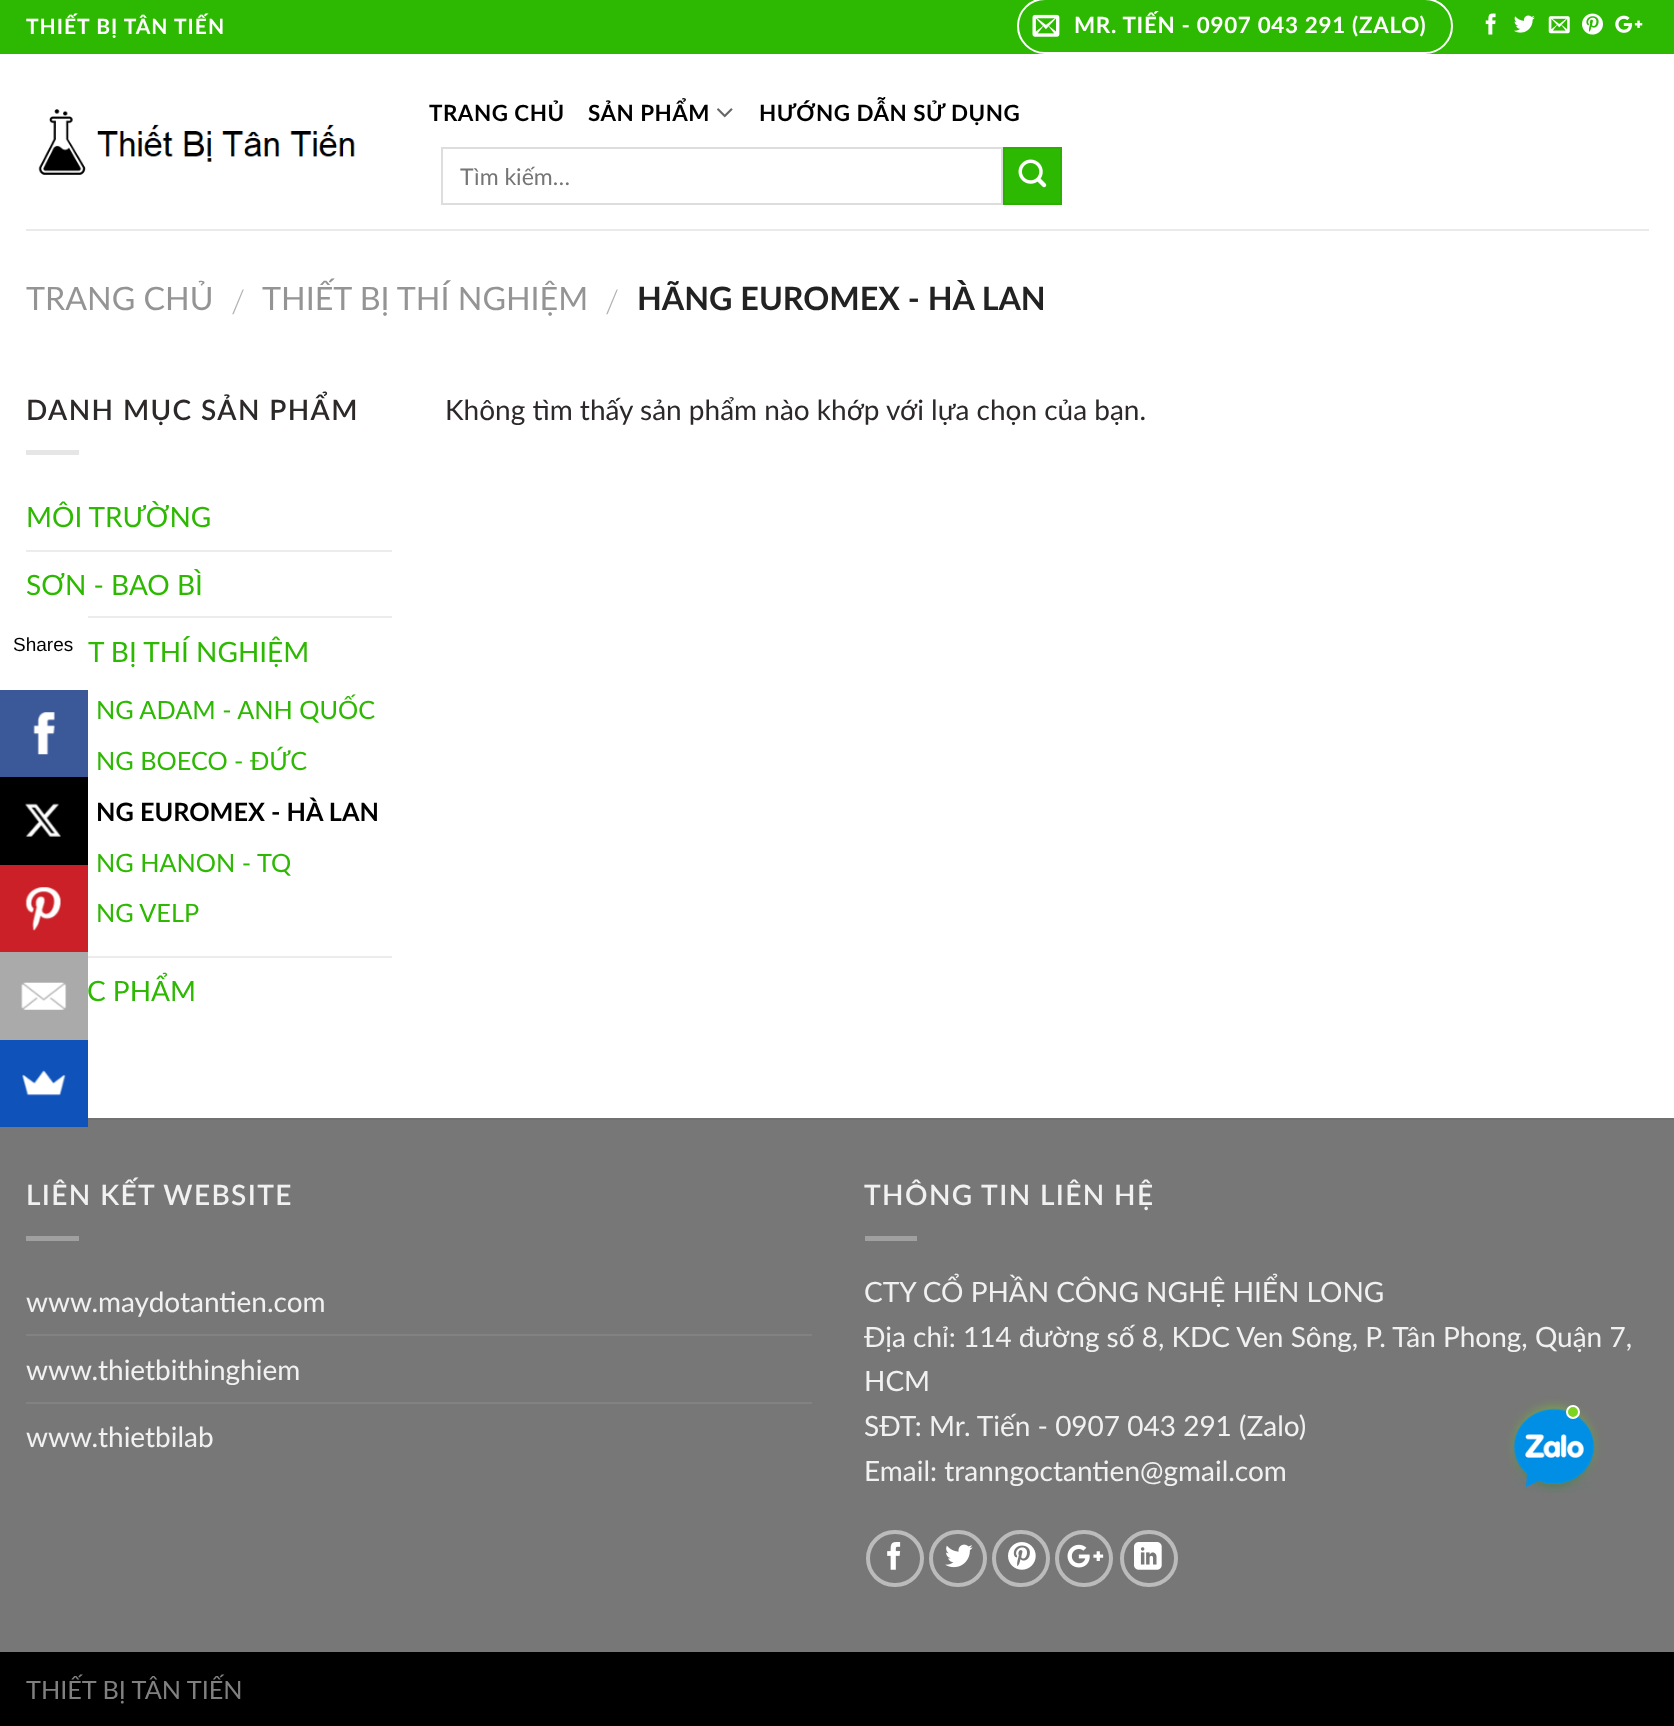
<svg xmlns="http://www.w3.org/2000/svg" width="1674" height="1726">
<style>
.a{font:bold 21px Lato;letter-spacing:1px;fill:#fff}
.b{font:bold 22.4px Lato;letter-spacing:0.7px;fill:#fff}
.c{font:bold 22.4px Lato;letter-spacing:0.5px;fill:#000}
.d{font:23px Lato;fill:#757575}
.e{font:32.25px Lato;fill:#949494}
.f{font:300 32.25px Lato;fill:#b2b2b2}
.g{font:bold 32.25px Lato;fill:#222}
.h{font:600 28px Lato;letter-spacing:1.4px;fill:#2d2929}
.i{font:28px Lato;fill:#2db902}
.j{font:25.25px Lato;fill:#2db902}
.k{font:bold 25.25px Lato;fill:#000}
.l{font:28px Lato;fill:#2d2929}
.m{font:600 28px Lato;letter-spacing:1.4px;fill:#f1f1f1}
.n{font:28px Lato;fill:#f1f1f1}
.o{font:25.25px Lato;fill:#808080}
.p{font:19px Liberation Sans;fill:#000}
</style>
<rect width="100%" height="100%" fill="#fff"/>
<path fill="#2db902" d="M0 0h1674v54H0z"/>
<rect fill="none" stroke="#fff" stroke-width="2" x="1018" y="-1" width="434" height="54" rx="27"/>
<image href="1.png" x="1032" y="14" width="28" height="23"/>
<image href="2.png" x="1485" y="13" width="11" height="22"/>
<image href="3.png" x="1514" y="15" width="21" height="18"/>
<image href="4.png" x="1548" y="16" width="22" height="18"/>
<image href="5.png" x="1582" y="13" width="21" height="22"/>
<image href="6.png" x="1615" y="15" width="28" height="18"/>
<image href="7.png" x="38" y="109" width="317" height="66"/>
<image href="8.png" x="717" y="108" width="16" height="10"/>
<path fill="none" stroke="#ddd" stroke-width="2" d="M442 148h560v56H442z"/>
<path fill="#2db902" stroke="#2bb002" stroke-width="2" d="M1004 148h57v56H1004z"/>
<image href="9.png" x="1018" y="159" width="29" height="29"/>
<path fill="#eaeaea" d="M26 229h1623v2H26z"/>
<path fill="#e6e6e6" d="M26 450h53v5H26z"/>
<path fill="#ececec" d="M26 550h366v2H26z"/>
<path fill="#ececec" d="M88 616h304v2H88z"/>
<path fill="#ececec" d="M88 956h304v2H88z"/>
<path fill="#777" d="M0 1120h1674v532H0z"/>
<path fill="#717171" d="M88 1118h1586v2H88z"/>
<path fill="#a0a0a0" d="M26 1236h53v5H26z"/>
<path fill="#828282" d="M26 1334h786v2H26z"/>
<path fill="#828282" d="M26 1402h786v2H26z"/>
<path fill="#a0a0a0" d="M865 1236h52v5H865z"/>
<rect fill="none" stroke="#bbb" stroke-width="4" x="868" y="1532" width="54" height="53" rx="26.5"/>
<image href="10.png" x="887" y="1542" width="14" height="28"/>
<rect fill="none" stroke="#bbb" stroke-width="4" x="931" y="1532" width="54" height="53" rx="26.5"/>
<image href="11.png" x="945" y="1544" width="28" height="24"/>
<rect fill="none" stroke="#bbb" stroke-width="4" x="994" y="1532" width="54" height="53" rx="26.5"/>
<image href="12.png" x="1008" y="1542" width="28" height="28"/>
<rect fill="none" stroke="#bbb" stroke-width="4" x="1057" y="1532" width="54" height="53" rx="26.5"/>
<image href="13.png" x="1067" y="1544" width="37" height="24"/>
<rect fill="none" stroke="#bbb" stroke-width="4" x="1122" y="1532" width="54" height="53" rx="26.5"/>
<image href="14.png" x="1134" y="1542" width="28" height="28"/>
<path fill="#000" d="M0 1652h1674v74H0z"/>
<path fill="#3b5998" d="M0 690h88v87H0z"/>
<image href="15.png" x="33" y="712" width="22" height="43"/>
<path fill="#000" d="M0 777h88v88H0z"/>
<image href="16.png" x="25" y="803" width="36" height="34"/>
<path fill="#cb2027" d="M0 865h88v87H0z"/>
<image href="17.png" x="25" y="887" width="36" height="44"/>
<path fill="#aaa" d="M0 952h88v88H0z"/>
<image href="18.png" x="21" y="982" width="46" height="28"/>
<path fill="#0f52ba" d="M0 1040h88v87H0z"/>
<image href="19.png" x="22" y="1070" width="44" height="26"/>
<rect fill="#7ed321" filter="blur(7px)" x="1519" y="1411" width="70" height="70" rx="35"/>
<image href="20.png" x="1512" y="1408" width="84" height="85"/>
<circle fill="#7ed321" stroke="#fff" stroke-width="2" cx="1573" cy="1412" r="6"/>
<text class="a" x="26" y="34">THIẾT BỊ TÂN TIẾN</text>
<text class="b" x="1074" y="33">MR. TIẾN - 0907 043 291 (ZALO)</text>
<text class="c" x="429" y="121">TRANG CHỦ</text>
<text class="c" x="588" y="121">SẢN PHẨM</text>
<text class="c" x="759" y="121">HƯỚNG DẪN SỬ DỤNG</text>
<text class="d" x="460" y="185">Tìm kiếm…</text>
<text class="e" x="26" y="310">TRANG CHỦ</text>
<text class="f" x="231" y="313">/</text>
<text class="e" x="262" y="310">THIẾT BỊ THÍ NGHIỆM</text>
<text class="f" x="605" y="313">/</text>
<text class="g" x="637" y="310">HÃNG EUROMEX - HÀ LAN</text>
<text class="h" x="26" y="420">DANH MỤC SẢN PHẨM</text>
<text class="i" x="26" y="527">MÔI TRƯỜNG</text>
<text class="i" x="26" y="595">SƠN - BAO BÌ</text>
<text class="i" x="88" y="662">T BỊ THÍ NGHIỆM</text>
<text class="j" x="96" y="719">NG ADAM - ANH QUỐC</text>
<text class="j" x="96" y="770">NG BOECO - ĐỨC</text>
<text class="k" x="96" y="821">NG EUROMEX - HÀ LAN</text>
<text class="j" x="96" y="872">NG HANON - TQ</text>
<text class="j" x="96" y="922">NG VELP</text>
<text class="i" x="87" y="1001">C PHẨM</text>
<text class="l" x="445" y="420">Không tìm thấy sản phẩm nào khớp với lựa chọn của bạn.</text>
<text class="m" x="26" y="1205">LIÊN KẾT WEBSITE</text>
<text class="n" x="26" y="1312">www.maydotantien.com</text>
<text class="n" x="26" y="1380">www.thietbithinghiem</text>
<text class="n" x="26" y="1447">www.thietbilab</text>
<text class="m" x="864" y="1205">THÔNG TIN LIÊN HỆ</text>
<text class="n" x="864" y="1302">CTY CỔ PHẦN CÔNG NGHỆ HIỂN LONG</text>
<text class="n" x="864" y="1347">Địa chỉ: 114 đường số 8, KDC Ven Sông, P. Tân Phong, Quận 7,</text>
<text class="n" x="864" y="1391">HCM</text>
<text class="n" x="864" y="1436">SĐT: Mr. Tiến - 0907 043 291 (Zalo)</text>
<text class="n" x="864" y="1481">Email: tranngoctantien@gmail.com</text>
<text class="o" x="26" y="1699">THIẾT BỊ TÂN TIẾN</text>
<text class="p" x="13" y="651">Shares</text>
</svg>
